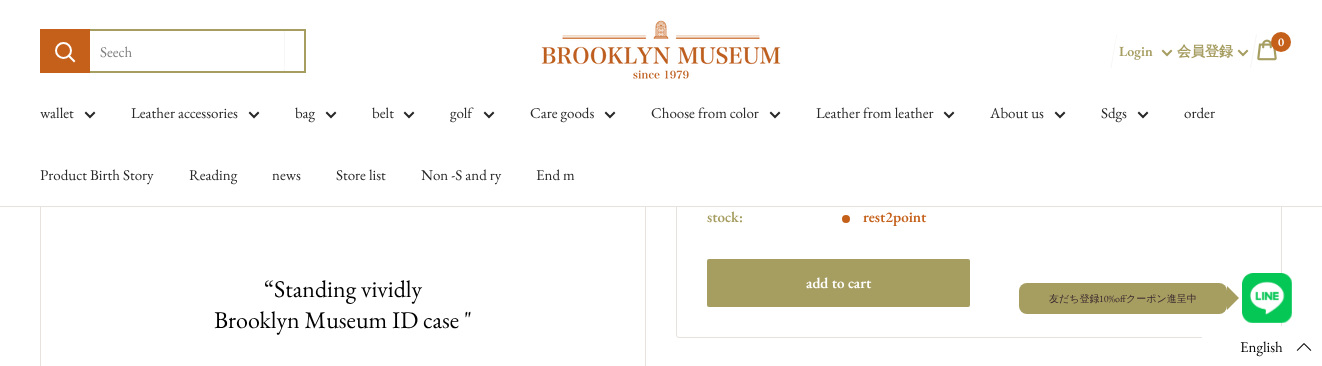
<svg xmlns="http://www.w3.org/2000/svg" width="1322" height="366">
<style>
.a{font:15px EB Garamond;fill:#808080}
.b{font:600 12px EB Garamond;fill:#fff}
.c{font:600 14px EB Garamond;fill:#a69d61}
.d{font:bold 14px WenQuanYi Zen Hei;fill:#a69d61}
.e{font:15px EB Garamond;fill:#282828}
.f{font:600 15px EB Garamond;fill:#a69d61}
.g{font:600 15px EB Garamond;fill:#c5601a}
.h{font:600 15px EB Garamond;fill:#fff}
.i{font:24px EB Garamond;fill:#000}
.j{font:500 10px WenQuanYi Zen Hei;fill:#3a2a2f}
.k{font:10px EB Garamond;fill:#3a2a2f}
.l{font:15px EB Garamond;fill:#000}
</style>
<rect width="100%" height="100%" fill="#fff"/>
<rect fill="none" stroke="#e7e2de" x="676.5" y="-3.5" width="605" height="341" rx="2.5"/>
<path fill="none" stroke="#e7e2de" d="M40.5 -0.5h605v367H40.5z"/>
<path fill="#fff" d="M40 0h1242v206H40z"/>
<path fill="#f8f6f5" d="M41 72c0 1 1 1 2 1h239c2 0 3-1 3-3v-38c0-1 0-2-1-2v33c0 2 2 9-3 9z"/>
<path fill="#c5601a" d="M40 29h50v44H40z"/>
<path fill="none" stroke="#fff" stroke-width="2" stroke-linecap="square" d="M74 61l-5-5"/>
<circle fill="none" stroke="#fff" stroke-width="2" cx="63.5" cy="50.5" r="7.5"/>
<path fill="#a69d61" d="M90 29h216v2H90z"/>
<path fill="#a69d61" d="M304 29h2v44H304z"/>
<path fill="#a69d61" d="M90 71h216v2H90z"/>
<image href="1.png" x="541" y="20" width="240" height="59"/>
<path fill="#f8f6f5" d="M1116.5 34l.5 .5l-5.5 33.5l-1-.5z"/>
<image href="2.png" x="1257" y="39" width="20" height="22"/>
<circle fill="#c5601a" cx="1281" cy="42" r="10"/>
<path fill="none" stroke="#a69d61" stroke-width="2" stroke-linecap="square" d="M1171 51l-4 4l-4-4"/>
<path fill="none" stroke="#a69d61" stroke-width="2" stroke-linecap="square" d="M1247 51l-4 4l-4-4"/>
<path fill="#f8f6f5" d="M1256 34l1 .5l-6 33.5l-1-.5z"/>
<path fill="#e7e2de" d="M0 206h1322v1H0z"/>
<path fill="none" stroke="#282828" stroke-width="2" stroke-linecap="square" d="M94 113l-4 4l-4-4"/>
<path fill="none" stroke="#282828" stroke-width="2" stroke-linecap="square" d="M258 113l-4 4l-4-4"/>
<path fill="none" stroke="#282828" stroke-width="2" stroke-linecap="square" d="M335 113l-4 4l-4-4"/>
<path fill="none" stroke="#282828" stroke-width="2" stroke-linecap="square" d="M413 113l-4 4l-4-4"/>
<path fill="none" stroke="#282828" stroke-width="2" stroke-linecap="square" d="M493 113l-4 4l-4-4"/>
<path fill="none" stroke="#282828" stroke-width="2" stroke-linecap="square" d="M614 113l-4 4l-4-4"/>
<path fill="none" stroke="#282828" stroke-width="2" stroke-linecap="square" d="M779 113l-4 4l-4-4"/>
<path fill="none" stroke="#282828" stroke-width="2" stroke-linecap="square" d="M953 113l-4 4l-4-4"/>
<path fill="none" stroke="#282828" stroke-width="2" stroke-linecap="square" d="M1064 113l-4 4l-4-4"/>
<path fill="none" stroke="#282828" stroke-width="2" stroke-linecap="square" d="M1147 113l-4 4l-4-4"/>
<circle fill="#c5601a" cx="846" cy="219" r="4"/>
<rect fill="#a69d61" x="707" y="259" width="263" height="48" rx="2"/>
<rect fill="#a69d61" x="1019" y="283" width="208" height="31" rx="8"/>
<path fill="#a69d61" d="M1227 310v-24l12 12z"/>
<image href="3.png" x="1242" y="273" width="50" height="50"/>
<path fill="#fff" d="M1202 326h80v12H1202z"/>
<image href="4.png" x="1296" y="343" width="16" height="8"/>
<text class="a" x="100" y="57">Seech</text>
<text class="b" x="1278" y="46">0</text>
<text class="c" x="1119" y="56">Login</text>
<text class="d" x="1177" y="56">会員登録</text>
<text class="e" x="40" y="118">wallet</text>
<text class="e" x="131" y="118">Leather accessories</text>
<text class="e" x="295" y="118">bag</text>
<text class="e" x="372" y="118">belt</text>
<text class="e" x="450" y="118">golf</text>
<text class="e" x="530" y="118">Care goods</text>
<text class="e" x="651" y="118">Choose from color</text>
<text class="e" x="816" y="118">Leather from leather</text>
<text class="e" x="990" y="118">About us</text>
<text class="e" x="1101" y="118">Sdgs</text>
<text class="e" x="1184" y="118">order</text>
<text class="e" x="40" y="180">Product Birth Story</text>
<text class="e" x="189" y="180">Reading</text>
<text class="e" x="272" y="180">news</text>
<text class="e" x="336" y="180">Store list</text>
<text class="e" x="421" y="180">Non -S and ry</text>
<text class="e" x="536" y="180">End m</text>
<text class="f" x="707" y="222">stock:</text>
<text class="g" x="863" y="222">rest2point</text>
<text class="h" x="806" y="288">add to cart</text>
<text class="i" x="264" y="297">“Standing vividly</text>
<text class="i" x="214" y="328">Brooklyn Museum ID case "</text>
<text class="j" x="1049" y="302">友だち登録</text>
<text class="k" x="1099" y="302">10%off</text>
<text class="j" x="1126" y="302">クーポン進呈中</text>
<text class="l" x="1240" y="352">English</text>
</svg>
